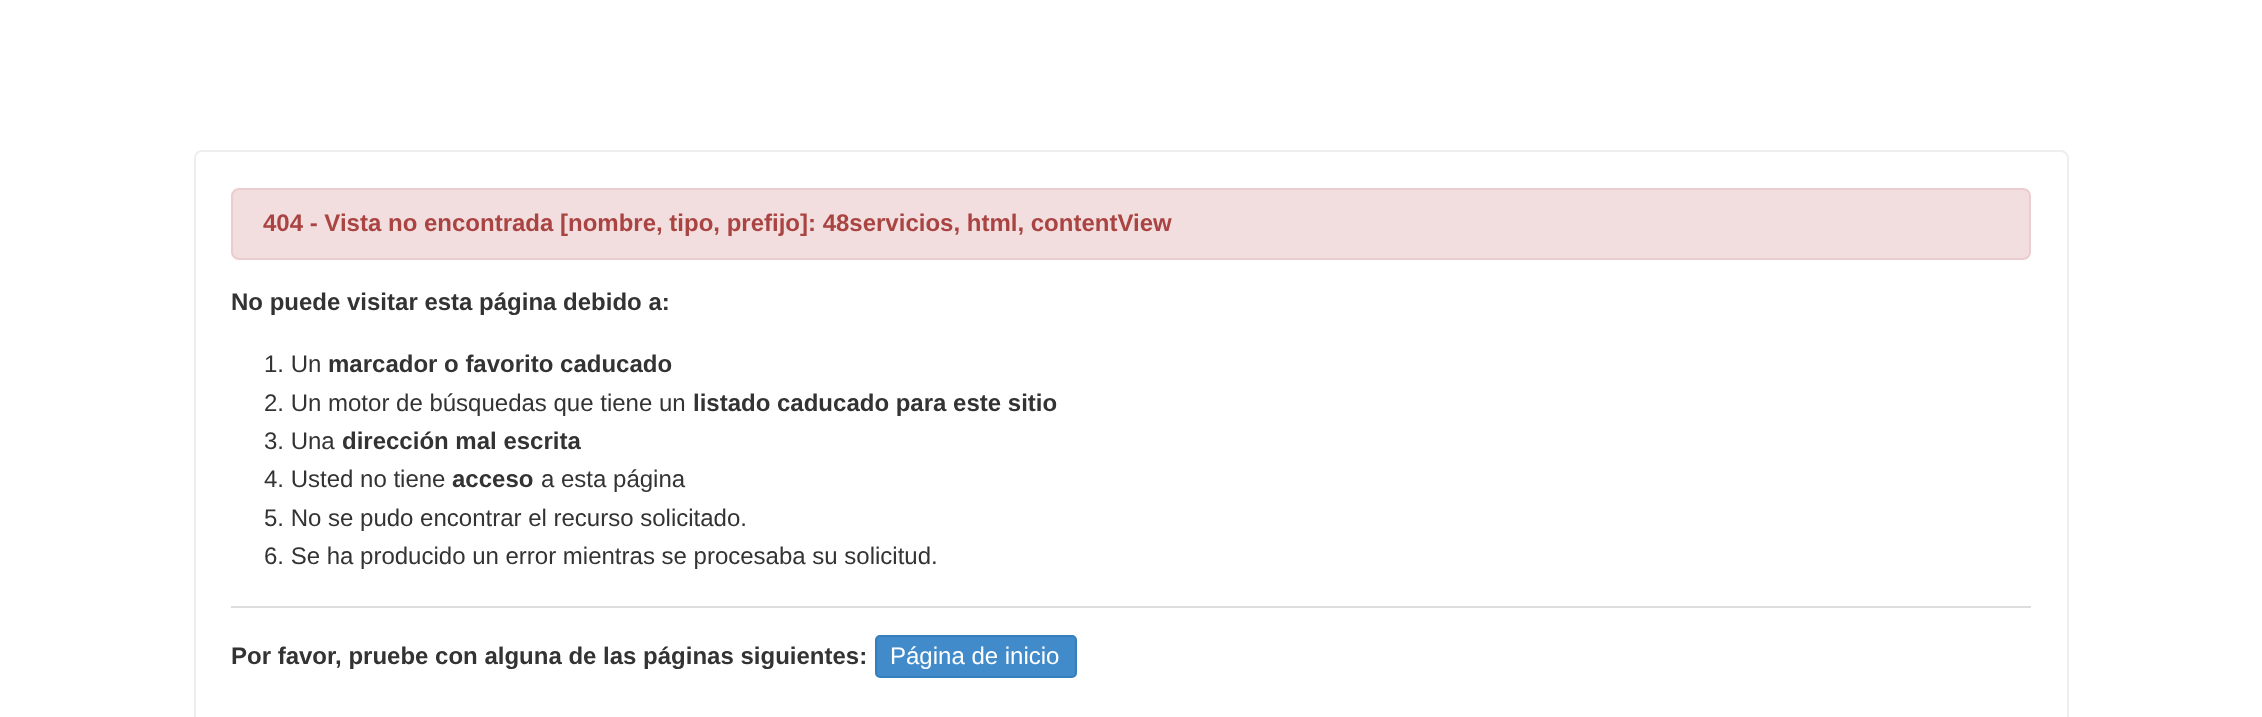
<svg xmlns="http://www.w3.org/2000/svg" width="2262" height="717">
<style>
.a{font:bold 24px Liberation Sans;fill:#a94442}
.b{font:bold 24px Liberation Sans;fill:#333}
.c{font:24px Liberation Sans;fill:#333}
.d{font:24px Liberation Sans;fill:#fff}
</style>
<rect width="100%" height="100%" fill="#fff"/>
<rect fill="none" stroke="#eee" stroke-width="2" x="195" y="151" width="1873" height="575" rx="7"/>
<rect fill="#f2dede" stroke="#ebccd1" stroke-width="2" x="232" y="189" width="1798" height="70" rx="7"/>
<path fill="#ddd" d="M231 606h1800v2H231z"/>
<rect fill="#428bca" stroke="#357ebd" stroke-width="2" x="876" y="636" width="200" height="41" rx="4"/>
<text class="a" x="263" y="231">404 - Vista no encontrada [nombre, tipo, prefijo]: 48servicios, html, contentView</text>
<text class="b" x="231" y="310">No puede visitar esta página debido a:</text>
<text class="c" x="264" y="372">1. Un</text>
<text class="b" x="328" y="372">marcador o favorito caducado</text>
<text class="c" x="264" y="411">2. Un motor de búsquedas que tiene un</text>
<text class="b" x="693" y="411">listado caducado para este sitio</text>
<text class="c" x="264" y="449">3. Una</text>
<text class="b" x="342" y="449">dirección mal escrita</text>
<text class="c" x="264" y="487">4. Usted no tiene</text>
<text class="b" x="452" y="487">acceso</text>
<text class="c" x="541" y="487">a esta página</text>
<text class="c" x="264" y="526">5. No se pudo encontrar el recurso solicitado.</text>
<text class="c" x="264" y="564">6. Se ha producido un error mientras se procesaba su solicitud.</text>
<text class="b" x="231" y="664">Por favor, pruebe con alguna de las páginas siguientes:</text>
<text class="d" x="890" y="664">Página de inicio</text>
</svg>
